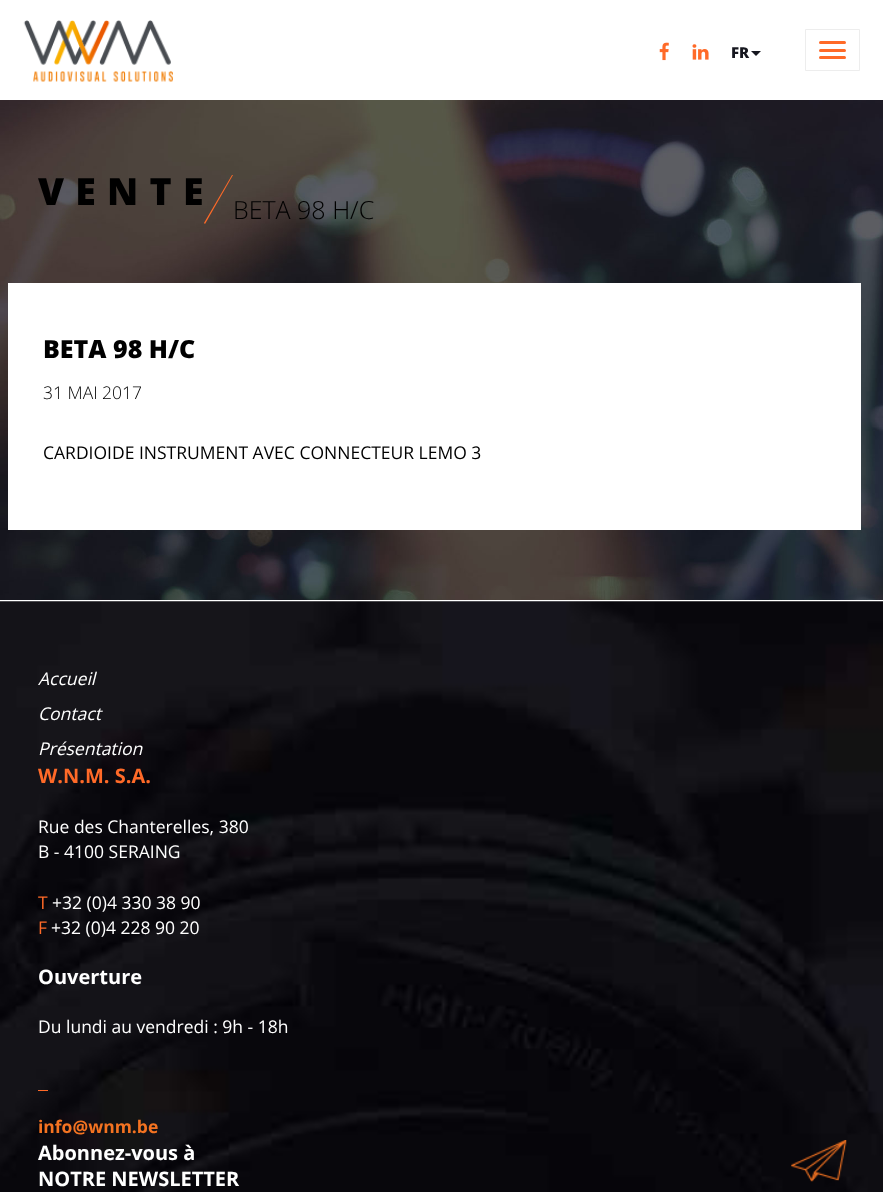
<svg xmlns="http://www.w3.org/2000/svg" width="883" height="1192">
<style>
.a{font:800 15px Open Sans;fill:#16171f}
.b{font:800 37.5px Open Sans;letter-spacing:11.25px;fill:#000}
.c{font:300 25px Open Sans;fill:#000}
.d{font:800 25px Open Sans;fill:#000}
.e{font:300 17.5px Open Sans;fill:#000}
.f{font:17.5px Open Sans;fill:#000}
.g{font:italic 17.5px Open Sans;fill:#fff}
.h{font:bold 20px Open Sans;fill:#ff6a28}
.i{font:17.5px Open Sans;fill:#fff}
.j{font:17.5px Open Sans;fill:#ff6a28}
.k{font:bold 20px Open Sans;fill:#fff}
.l{font:bold 17.5px Open Sans;fill:#f47321}
</style>
<rect width="100%" height="100%" fill="#fff"/>
<image href="1.png" x="23" y="20" width="150" height="62"/>
<path fill="none" stroke="#ededed" d="M805.5 29.5h54v41H805.5z"/>
<rect fill="#ff6a28" x="819" y="41" width="27" height="3" rx="1.5"/>
<rect fill="#ff6a28" x="819" y="49" width="27" height="3" rx="1.5"/>
<rect fill="#ff6a28" x="819" y="56" width="27" height="3" rx="1.5"/>
<image href="2.png" x="659" y="42" width="10" height="19"/>
<image href="3.png" x="692" y="44" width="17" height="16"/>
<path fill="#16171f" d="M751 51h10l-5 5z"/>
<image href="4.png" x="0" y="100" width="883" height="500"/>
<path fill="#ff6a28" d="M232 175h1l-28 49l-1-1z"/>
<path fill="#fff" d="M8 283h853v247H8z"/>
<image href="5.png" x="0" y="601" width="883" height="591"/>
<path fill="#ff6a28" d="M38 1090h10v1H38z"/>
<image href="6.png" x="791" y="1140" width="56" height="42"/>
<text class="a" x="731" y="58">FR</text>
<text class="b" x="38" y="205">VENTE</text>
<text class="c" x="233" y="219">BETA 98 H/C</text>
<text class="d" x="43" y="358">BETA 98 H/C</text>
<text class="e" x="43" y="399">31 MAI 2017</text>
<text class="f" x="43" y="459">CARDIOIDE INSTRUMENT AVEC CONNECTEUR LEMO 3</text>
<text class="g" x="38" y="685">Accueil</text>
<text class="g" x="38" y="720">Contact</text>
<text class="g" x="38" y="755">Présentation</text>
<text class="h" x="38" y="783">W.N.M. S.A.</text>
<text class="i" x="38" y="833">Rue des Chanterelles, 380</text>
<text class="i" x="38" y="858">B - 4100 SERAING</text>
<text class="j" x="38" y="909">T</text>
<text class="i" x="52" y="909">+32 (0)4 330 38 90</text>
<text class="j" x="38" y="934">F</text>
<text class="i" x="51" y="934">+32 (0)4 228 90 20</text>
<text class="k" x="38" y="984">Ouverture</text>
<text class="i" x="38" y="1033">Du lundi au vendredi : 9h - 18h</text>
<text class="l" x="38" y="1133">info@wnm.be</text>
<text class="k" x="38" y="1160">Abonnez-vous à</text>
<text class="k" x="38" y="1186">NOTRE NEWSLETTER</text>
</svg>
